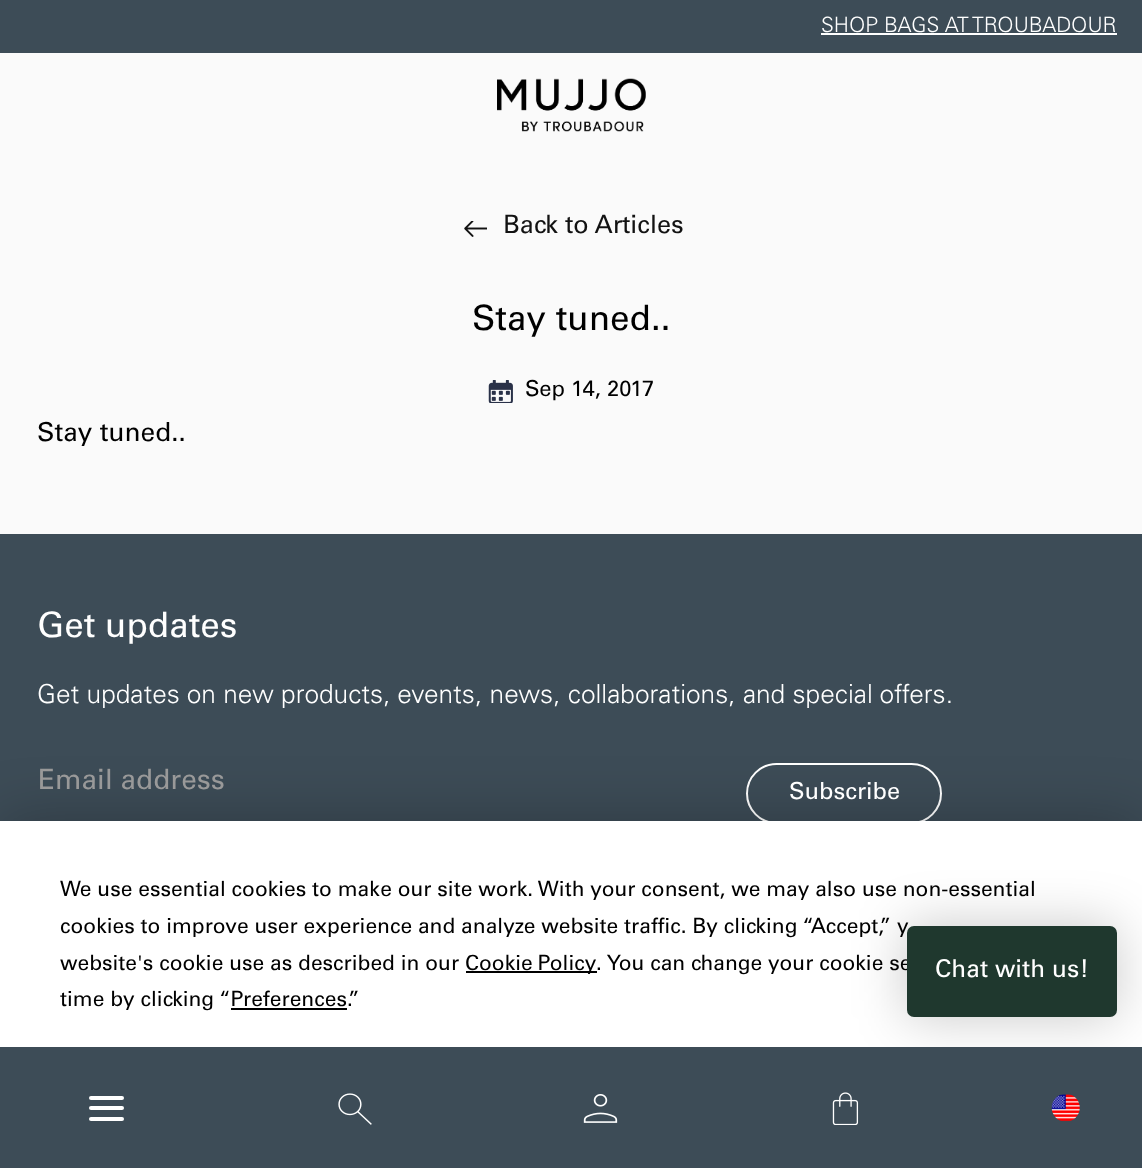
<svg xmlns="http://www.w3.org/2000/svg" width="1142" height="1168">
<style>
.a{font:300 21px Univers;fill:#fff}
.b{font:25.25px Univers;fill:#121212}
.c{font:35px Univers;fill:#000}
.d{font:22px Univers;fill:#000}
.e{font:26.25px Univers;fill:#000}
.f{font:35px Univers;fill:#fff}
.g{font:300 26.25px Univers;fill:#fff}
.h{font:28px Univers;fill:#999}
.i{font:23.5px Univers;fill:#fff}
.j{font:21px Univers;fill:#000}
.k{font:24.5px Univers;fill:#fff}
</style>
<rect width="100%" height="100%" fill="#fafafa"/>
<path fill="#3d4c57" d="M0 0h1142v53H0z"/>
<path fill="#fff" d="M821 33h296v2H821z"/>
<image href="1.png" x="497" y="78" width="149" height="54"/>
<path fill="#3d4c57" d="M0 534h1142v287H0z"/>
<rect fill="none" stroke="#fff" stroke-width="2" x="747" y="764" width="194" height="59" rx="29.5"/>
<path fill="#00000040" filter="blur(30.5px)" d="M0 821h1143v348H0z"/>
<path fill="#fff" d="M0 821h1142v226H0z"/>
<rect fill="#00000033" filter="blur(26px)" x="905" y="924" width="213" height="95" rx="9"/>
<path fill="#3d4c57" d="M0 1047h1142v121H0z"/>
<rect fill="#fff" x="89" y="1096" width="35" height="4" rx="2"/>
<rect fill="#fff" x="89" y="1106" width="35" height="4" rx="2"/>
<rect fill="#fff" x="89" y="1117" width="35" height="4" rx="2"/>
<image href="2.png" x="338" y="1093" width="34" height="32"/>
<image href="3.png" x="583" y="1094" width="35" height="29"/>
<image href="4.png" x="832" y="1092" width="27" height="33"/>
<image href="5.png" x="1051" y="1094" width="29" height="28"/>
<image href="6.png" x="464" y="221" width="23" height="16"/>
<image href="7.png" x="488" y="380" width="25" height="23"/>
<path fill="#000" d="M466 971h131v2H466z"/>
<path fill="#000" d="M231 1008h116v2H231z"/>
<text class="a" x="821" y="32">SHOP BAGS AT TROUBADOUR</text>
<text class="b" x="503" y="233">Back to Articles</text>
<text class="c" x="472" y="330">Stay tuned..</text>
<text class="d" x="525" y="396">Sep 14, 2017</text>
<text class="e" x="37" y="441">Stay tuned..</text>
<text class="f" x="37" y="637">Get updates</text>
<text class="g" x="37" y="703">Get updates on new products, events, news, collaborations, and special offers.</text>
<text class="h" x="38" y="789">Email address</text>
<text class="i" x="789" y="799">Subscribe</text>
<text class="j" x="60" y="896">We use essential cookies to make our site work. With your consent, we may also use non-essential</text>
<text class="j" x="60" y="933">cookies to improve user experience and analyze website traffic. By clicking “Accept,” y</text>
<text class="j" x="60" y="970">website's cookie use as described in our</text>
<text class="j" x="465" y="970" word-spacing="-1">Cookie Policy</text>
<text class="j" x="596" y="970">. You can change your cookie se</text>
<text class="j" x="60" y="1006">time by clicking “Preferences.”</text>
<rect fill="#1f382e" stroke="#1f382e" stroke-width="2" x="908" y="927" width="208" height="89" rx="6"/>
<text class="k" x="935" y="977">Chat with us!</text>
</svg>
